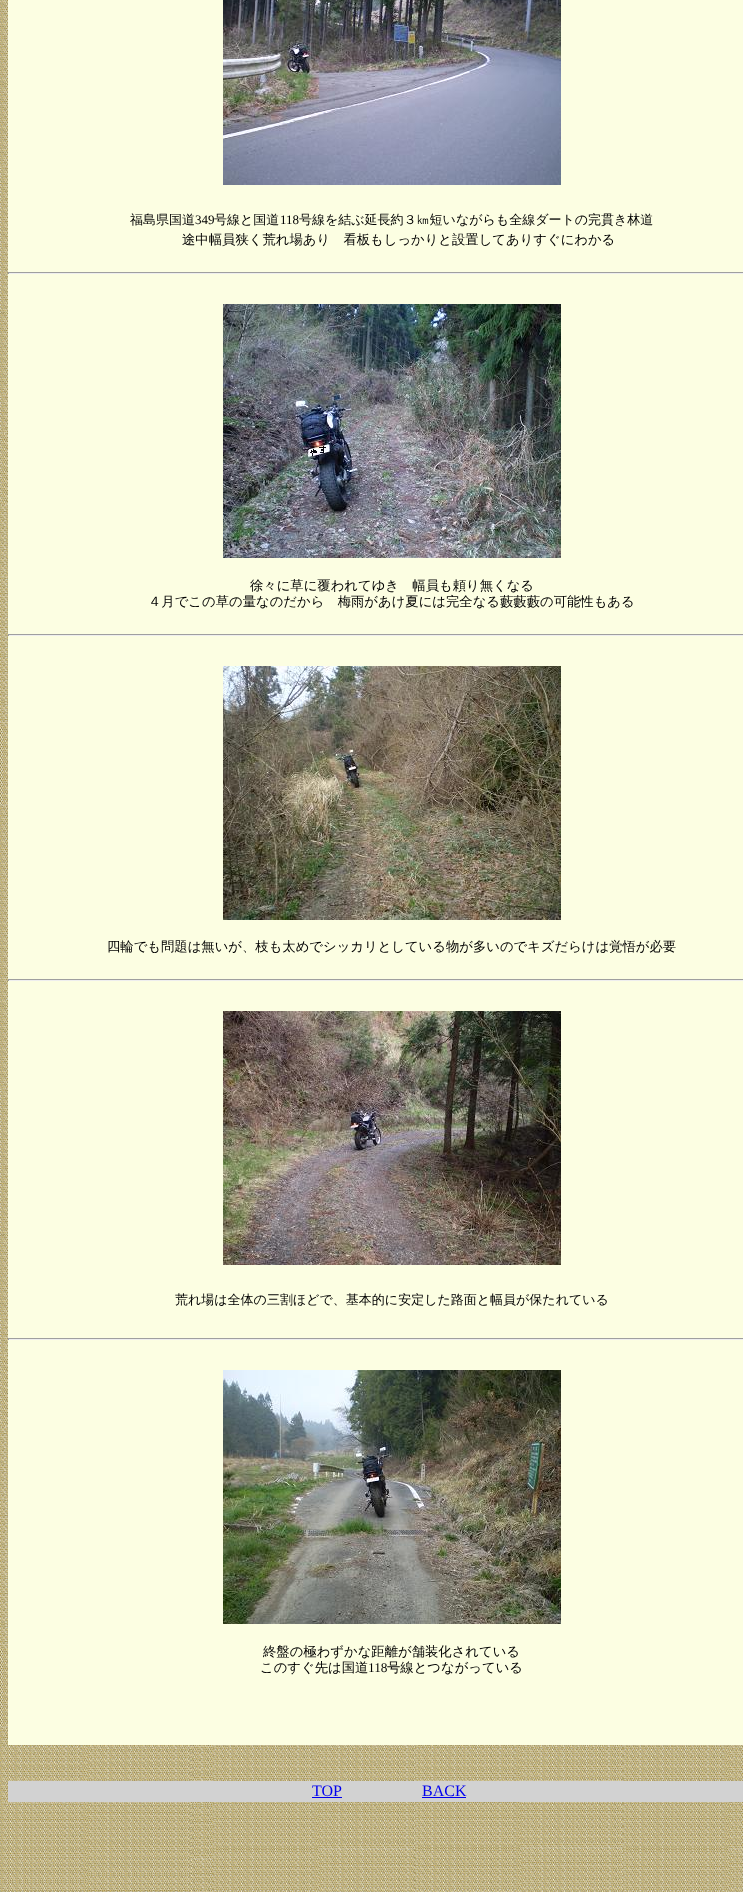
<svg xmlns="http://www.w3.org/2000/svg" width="743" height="1892">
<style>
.a{font:500 13px WenQuanYi Zen Hei;fill:#000}
.b{font:13px Liberation Serif;fill:#000}
.c{font:500 13.35px WenQuanYi Zen Hei;fill:#000}
.d{font:13.35px Liberation Serif;fill:#000}
.e{font:16px Liberation Serif;fill:#00e}
</style>
<rect width="100%" height="100%" fill="#fff"/>
<image href="1.png" x="0" y="0" width="743" height="1892"/>
<path fill="#fcfee2" d="M8 0h735v1745H8z"/>
<image href="2.png" x="223" y="0" width="338" height="185"/>
<path fill="#9f9f9f" d="M8 272h735v1H8z"/>
<path fill="#eee" d="M8 273h735v1H8z"/>
<path fill="#9f9f9f" d="M8 272h1v2H8z"/>
<image href="3.png" x="223" y="304" width="338" height="254"/>
<path fill="#9f9f9f" d="M8 634h735v1H8z"/>
<path fill="#eee" d="M8 635h735v1H8z"/>
<path fill="#9f9f9f" d="M8 634h1v2H8z"/>
<image href="4.png" x="223" y="666" width="338" height="254"/>
<path fill="#9f9f9f" d="M8 979h735v1H8z"/>
<path fill="#eee" d="M8 980h735v1H8z"/>
<path fill="#9f9f9f" d="M8 979h1v2H8z"/>
<image href="5.png" x="223" y="1011" width="338" height="254"/>
<path fill="#9f9f9f" d="M8 1338h735v1H8z"/>
<path fill="#eee" d="M8 1339h735v1H8z"/>
<path fill="#9f9f9f" d="M8 1338h1v2H8z"/>
<image href="6.png" x="223" y="1370" width="338" height="254"/>
<path fill="#d2d2d2" d="M8 1781h735v21H8z"/>
<path fill="#00e" d="M312 1797h30v1H312z"/>
<path fill="#00e" d="M422 1797h44v1H422z"/>
<text class="a" x="130" y="224">福島県国道</text>
<text class="b" x="195" y="224">349</text>
<text class="a" x="214" y="224">号線と国道</text>
<text class="b" x="280" y="224">118</text>
<text class="a" x="299" y="224">号線を結ぶ延長約３㎞短いながらも全線ダートの完貫き林道</text>
<text class="c" x="182" y="244">途中幅員狭く荒れ場あり　看板もしっかりと設置してありすぐにわかる</text>
<text class="c" x="250" y="590">徐々に草に覆われてゆき　幅員も頼り無くなる</text>
<text class="c" x="148" y="606">４月でこの草の量なのだから　梅雨があけ夏には完全なる藪藪藪の可能性もある</text>
<text class="c" x="107" y="951">四輪でも問題は無いが、枝も太めでシッカリとしている物が多いのでキズだらけは覚悟が必要</text>
<text class="a" x="175" y="1304">荒れ場は全体の三割ほどで、基本的に安定した路面と幅員が保たれている</text>
<text class="c" x="263" y="1656">終盤の極わずかな距離が舗装化されている</text>
<text class="c" x="260" y="1672">このすぐ先は国道</text>
<text class="d" x="368" y="1672">118</text>
<text class="c" x="387" y="1672">号線とつながっている</text>
<text class="e" x="312" y="1796">TOP</text>
<text class="e" x="422" y="1796">BACK</text>
</svg>
